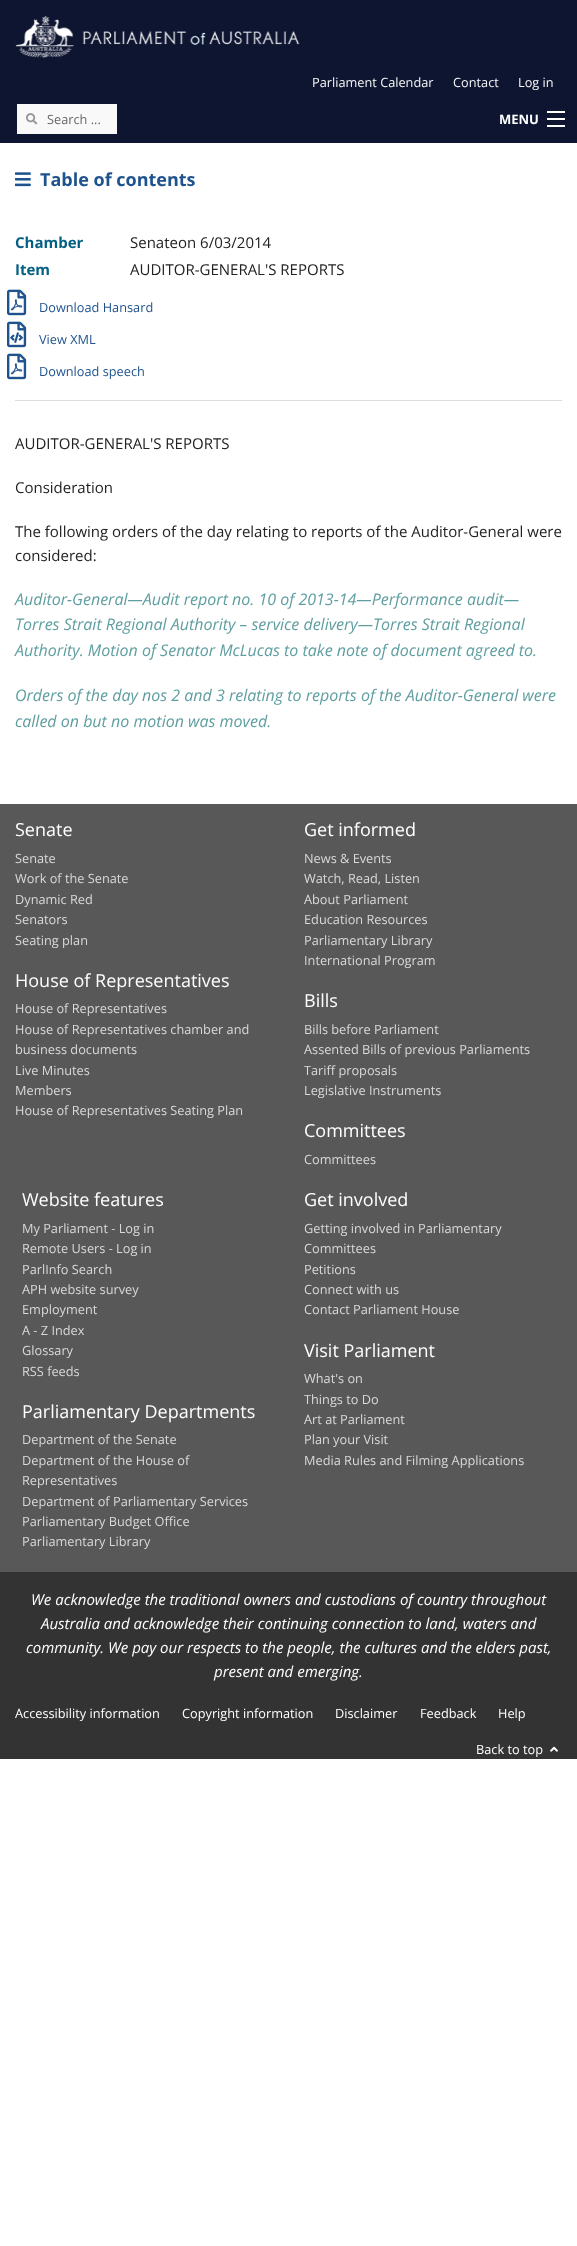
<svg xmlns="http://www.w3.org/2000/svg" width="577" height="2246">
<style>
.a{font:12.75px Open Sans;fill:#f6f6f6}
.b{font:12.75px Open Sans;fill:#696969}
.c{font:bold 13px Open Sans;fill:#fff}
.d{font:bold 18px Open Sans;fill:#1f538d}
.e{font:bold 15px Open Sans;fill:#045f85}
.f{font:15px Open Sans;fill:#222}
.g{font:12.75px Open Sans;fill:#1f538d}
.h{font:italic 16px Open Sans;fill:#5f9ea0}
.i{font:18px Open Sans;fill:#fff}
.j{font:12.75px Open Sans;fill:#d9d9d9}
.k{font:italic 15px Open Sans;fill:#fff}
.l{font:12.75px Open Sans;fill:#fff}
</style>
<rect width="100%" height="100%" fill="#fff"/>
<path fill="#0e1531" d="M0 0h577v143H0z"/>
<image href="1.png" x="15" y="15" width="285" height="43"/>
<path fill="#f9f9f9" d="M17 104h100v30H17z"/>
<image href="2.png" x="26" y="113" width="12" height="12"/>
<path fill="#fff" d="M547 125h18v2H547z"/>
<path fill="#fff" d="M547 118h18v2H547z"/>
<path fill="#fff" d="M547 111h18v2H547z"/>
<image href="3.png" x="15" y="172" width="16" height="15"/>
<image href="4.png" x="7" y="289" width="20" height="27"/>
<image href="5.png" x="7" y="321" width="20" height="27"/>
<image href="4.png" x="7" y="353" width="20" height="27"/>
<path fill="#ddd" d="M15 400h547v1H15z"/>
<path fill="#585858" d="M0 804h577v768H0z"/>
<path fill="#333" d="M0 1572h577v187H0z"/>
<image href="6.png" x="550" y="1746" width="8" height="6"/>
<text class="a" x="312" y="87">Parliament Calendar</text>
<text class="a" x="453" y="87">Contact</text>
<text class="a" x="518" y="87">Log in</text>
<text class="b" x="47" y="124">Search ...</text>
<text class="c" x="499" y="124">MENU</text>
<text class="d" x="40" y="186">Table of contents</text>
<text class="e" x="15" y="248">Chamber</text>
<text class="f" x="130" y="248">Senateon 6/03/2014</text>
<text class="e" x="15" y="275">Item</text>
<text class="f" x="130" y="275">AUDITOR-GENERAL'S REPORTS</text>
<text class="g" x="39" y="312">Download Hansard</text>
<text class="g" x="39" y="344">View XML</text>
<text class="g" x="39" y="376">Download speech</text>
<text class="f" x="15" y="449">AUDITOR-GENERAL'S REPORTS</text>
<text class="f" x="15" y="493">Consideration</text>
<text class="f" x="15" y="537">The following orders of the day relating to reports of the Auditor-General were</text>
<text class="f" x="15" y="561">considered:</text>
<text class="h" x="15" y="605">Auditor-General—Audit report no. 10 of 2013-14—Performance audit—</text>
<text class="h" x="15" y="630">Torres Strait Regional Authority – service delivery—Torres Strait Regional</text>
<text class="h" x="15" y="656">Authority. Motion of Senator McLucas to take note of document agreed to.</text>
<text class="h" x="15" y="701">Orders of the day nos 2 and 3 relating to reports of the Auditor-General were</text>
<text class="h" x="15" y="727">called on but no motion was moved.</text>
<text class="i" x="15" y="836">Senate</text>
<text class="j" x="15" y="863">Senate</text>
<text class="j" x="15" y="883">Work of the Senate</text>
<text class="j" x="15" y="904">Dynamic Red</text>
<text class="j" x="15" y="924">Senators</text>
<text class="j" x="15" y="945">Seating plan</text>
<text class="i" x="15" y="987">House of Representatives</text>
<text class="j" x="15" y="1013">House of Representatives</text>
<text class="j" x="15" y="1034">House of Representatives chamber and</text>
<text class="j" x="15" y="1054">business documents</text>
<text class="j" x="15" y="1075">Live Minutes</text>
<text class="j" x="15" y="1095">Members</text>
<text class="j" x="15" y="1115">House of Representatives Seating Plan</text>
<text class="i" x="304" y="836">Get informed</text>
<text class="j" x="304" y="863">News &amp; Events</text>
<text class="j" x="304" y="883">Watch, Read, Listen</text>
<text class="j" x="304" y="904">About Parliament</text>
<text class="j" x="304" y="924">Education Resources</text>
<text class="j" x="304" y="945">Parliamentary Library</text>
<text class="j" x="304" y="965">International Program</text>
<text class="i" x="304" y="1007">Bills</text>
<text class="j" x="304" y="1034">Bills before Parliament</text>
<text class="j" x="304" y="1054">Assented Bills of previous Parliaments</text>
<text class="j" x="304" y="1075">Tariff proposals</text>
<text class="j" x="304" y="1095">Legislative Instruments</text>
<text class="i" x="304" y="1137">Committees</text>
<text class="j" x="304" y="1164">Committees</text>
<text class="i" x="22" y="1206">Website features</text>
<text class="j" x="22" y="1233">My Parliament - Log in</text>
<text class="j" x="22" y="1253">Remote Users - Log in</text>
<text class="j" x="22" y="1274">ParlInfo Search</text>
<text class="j" x="22" y="1294">APH website survey</text>
<text class="j" x="22" y="1314">Employment</text>
<text class="j" x="22" y="1335">A - Z Index</text>
<text class="j" x="22" y="1355">Glossary</text>
<text class="j" x="22" y="1376">RSS feeds</text>
<text class="i" x="22" y="1418">Parliamentary Departments</text>
<text class="j" x="22" y="1444">Department of the Senate</text>
<text class="j" x="22" y="1465">Department of the House of</text>
<text class="j" x="22" y="1485">Representatives</text>
<text class="j" x="22" y="1506">Department of Parliamentary Services</text>
<text class="j" x="22" y="1526">Parliamentary Budget Office</text>
<text class="j" x="22" y="1546">Parliamentary Library</text>
<text class="i" x="304" y="1206">Get involved</text>
<text class="j" x="304" y="1233">Getting involved in Parliamentary</text>
<text class="j" x="304" y="1253">Committees</text>
<text class="j" x="304" y="1274">Petitions</text>
<text class="j" x="304" y="1294">Connect with us</text>
<text class="j" x="304" y="1314">Contact Parliament House</text>
<text class="i" x="304" y="1357">Visit Parliament</text>
<text class="j" x="304" y="1383">What's on</text>
<text class="j" x="304" y="1404">Things to Do</text>
<text class="j" x="304" y="1424">Art at Parliament</text>
<text class="j" x="304" y="1444">Plan your Visit</text>
<text class="j" x="304" y="1465">Media Rules and Filming Applications</text>
<text class="k" x="31" y="1605">We acknowledge the traditional owners and custodians of country throughout</text>
<text class="k" x="41" y="1629">Australia and acknowledge their continuing connection to land, waters and</text>
<text class="k" x="26" y="1653">community. We pay our respects to the people, the cultures and the elders past,</text>
<text class="k" x="214" y="1677">present and emerging.</text>
<text class="l" x="15" y="1718">Accessibility information</text>
<text class="l" x="182" y="1718">Copyright information</text>
<text class="l" x="335" y="1718">Disclaimer</text>
<text class="l" x="420" y="1718">Feedback</text>
<text class="l" x="498" y="1718">Help</text>
<text class="l" x="476" y="1754">Back to top</text>
</svg>
